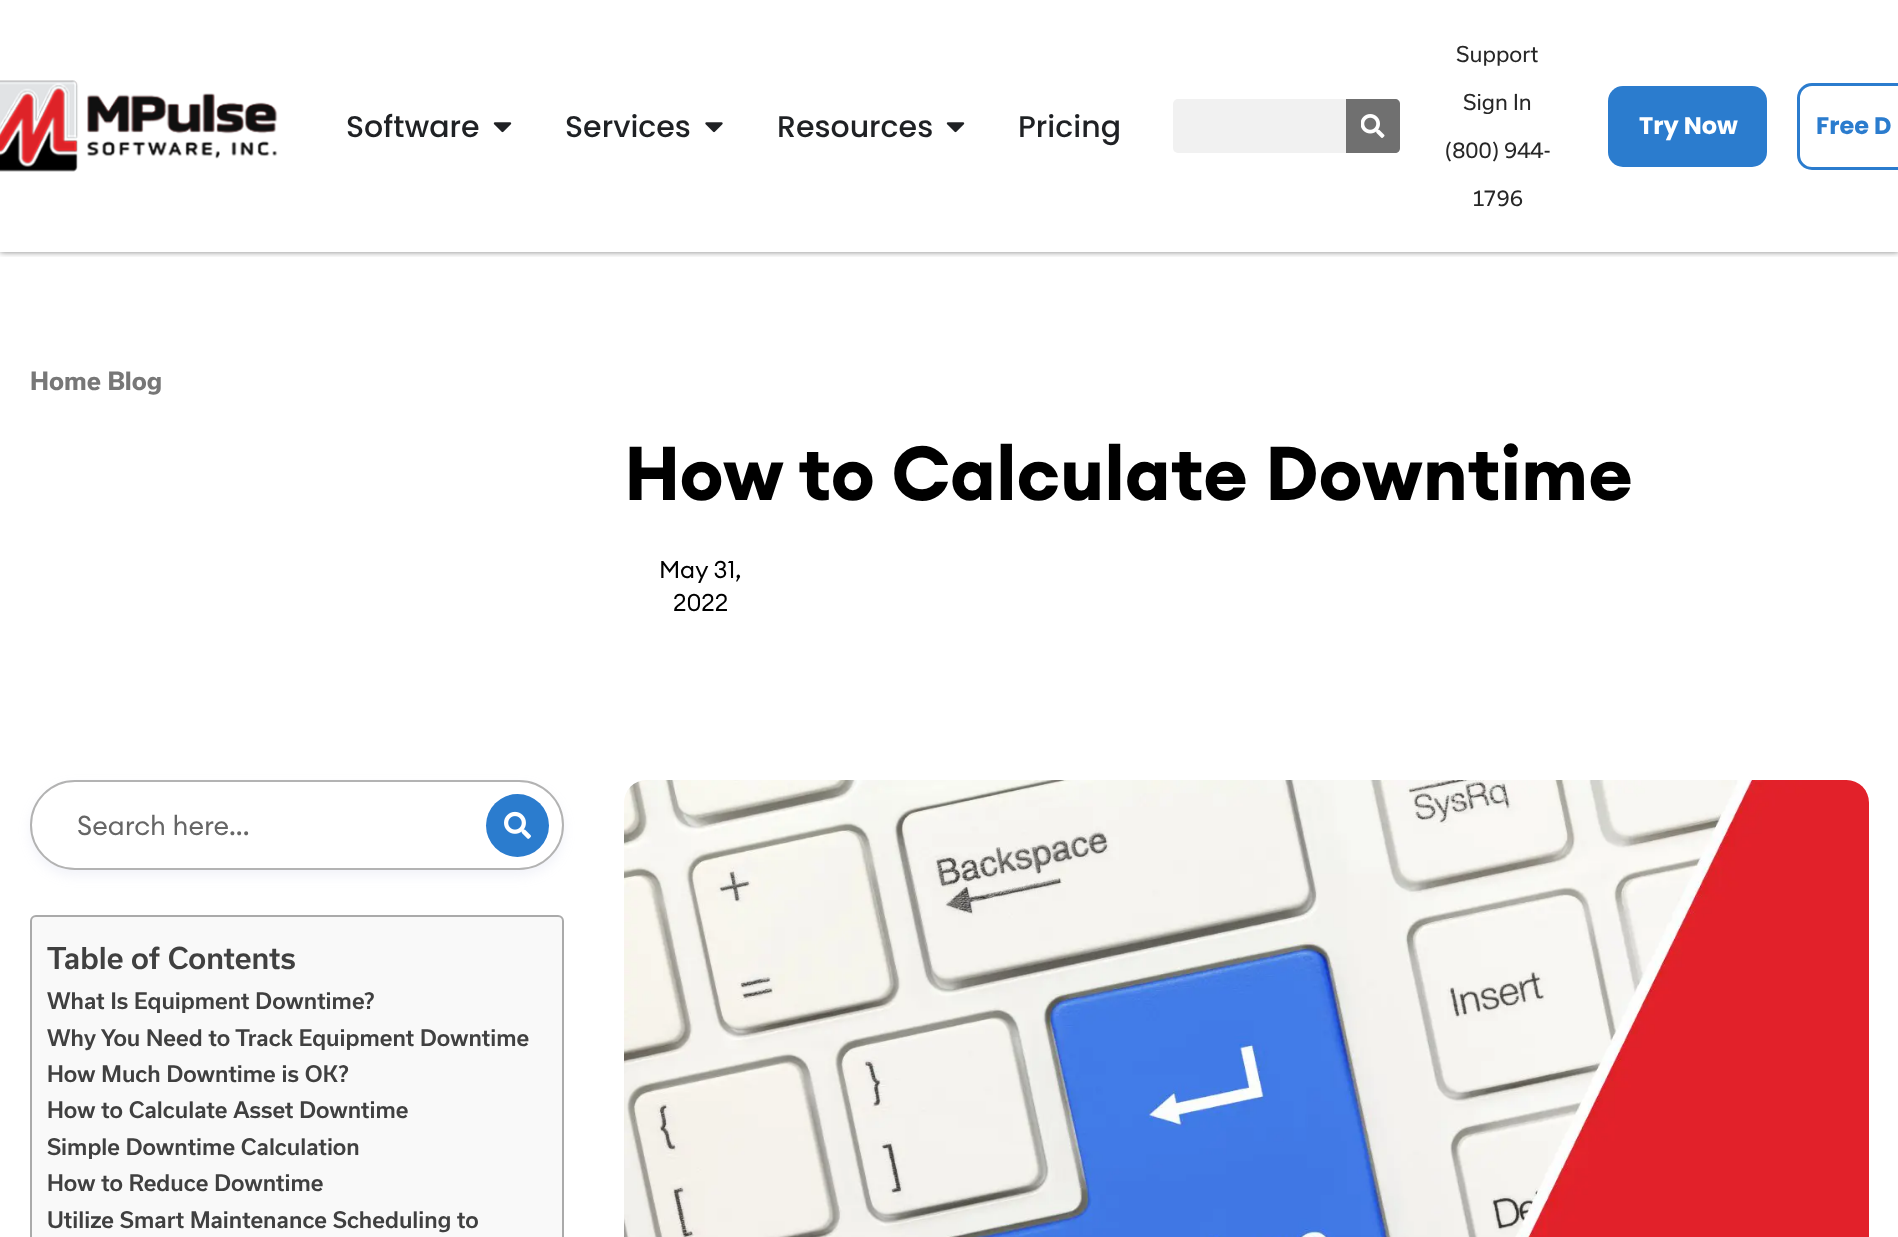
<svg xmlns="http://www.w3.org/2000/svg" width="1898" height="1237">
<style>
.a{font:500 30px Poppins;fill:#1f2124}
.b{font:21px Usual;fill:#272727}
.c{font:bold 24px Poppins;fill:#fff}
.d{font:bold 24px Poppins;fill:#2b7cce}
.e{font:bold 24px Usual;fill:#777}
.f{font:bold 75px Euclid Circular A;fill:#000}
.g{font:24px Euclid Circular A;fill:#000}
.h{font:27px Euclid Circular A;fill:#666}
.i{font:500 28.75px Usual;fill:#404040}
.j{font:500 21.7px Usual;fill:#404040}
</style>
<defs>
<clipPath id="clip1"><path d="M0 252h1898v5H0z"/></clipPath>
<clipPath id="clip2"><path d="M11 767h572v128h-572zm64 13h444c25 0 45 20 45 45c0 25-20 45-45 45h-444c-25 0-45-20-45-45c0-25 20-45 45-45z" clip-rule="evenodd"/></clipPath>
</defs>
<rect width="100%" height="100%" fill="#fff"/>
<g clip-path="url(#clip1)">
<path fill="#00000080" filter="blur(3px)" d="M0 0h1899v252H0z"/>
</g>
<image href="1.png" x="0" y="80" width="278" height="92"/>
<image href="2.png" x="493" y="122" width="19" height="11"/>
<image href="3.png" x="705" y="122" width="18" height="11"/>
<image href="2.png" x="946" y="122" width="19" height="11"/>
<rect fill="#f1f1f1" x="1173" y="99" width="227" height="54" rx="5"/>
<path fill="#707070" d="M1346 99h49c3 0 5 2 5 5v44c0 3-2 5-5 5h-49z"/>
<image href="4.png" x="1361" y="114" width="24" height="24"/>
<rect fill="#2b7cce" x="1608" y="86" width="159" height="81" rx="15"/>
<rect fill="none" stroke="#2b7cce" stroke-width="3" x="1798.5" y="84.5" width="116" height="84" rx="13.5"/>
<g clip-path="url(#clip2)">
<rect fill="#a5aed526" filter="blur(6px)" x="30" y="786" width="534" height="90" rx="45"/>
</g>
<rect fill="none" stroke="#b3b3b3" stroke-width="2" x="31" y="781" width="532" height="88" rx="44"/>
<circle fill="#2b7cce" cx="517.5" cy="825.5" r="31.5"/>
<image href="5.png" x="504" y="811" width="27" height="28"/>
<rect fill="#f9f9f9" stroke="#aaa" stroke-width="2" x="31" y="916" width="532" height="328" rx="5"/>
<image href="6.png" x="624" y="780" width="1245" height="457"/>
<text class="a" x="346" y="137">Software</text>
<text class="a" x="565" y="137">Services</text>
<text class="a" x="777" y="137">Resources</text>
<text class="a" x="1018" y="137">Pricing</text>
<text class="b" x="1456" y="62">Support</text>
<text class="b" x="1463" y="110">Sign In</text>
<text class="b" x="1445" y="158">(800) 944-</text>
<text class="b" x="1472" y="206">1796</text>
<text class="c" x="1639" y="134">Try Now</text>
<text class="d" x="1816" y="134">Free D</text>
<text class="e" x="30" y="390">Home Blog</text>
<text class="f" x="624" y="500">How to Calculate Downtime</text>
<text class="g" x="659" y="578">May 31,</text>
<text class="g" x="673" y="611">2022</text>
<text class="h" x="77" y="835">Search here...</text>
<text class="i" x="47" y="969">Table of Contents</text>
<text class="j" x="47" y="1009">What Is Equipment Downtime?</text>
<text class="j" x="47" y="1046">Why You Need to Track Equipment Downtime</text>
<text class="j" x="47" y="1082">How Much Downtime is OK?</text>
<text class="j" x="47" y="1118">How to Calculate Asset Downtime</text>
<text class="j" x="47" y="1155">Simple Downtime Calculation</text>
<text class="j" x="47" y="1191">How to Reduce Downtime</text>
<text class="j" x="47" y="1228">Utilize Smart Maintenance Scheduling to</text>
</svg>
